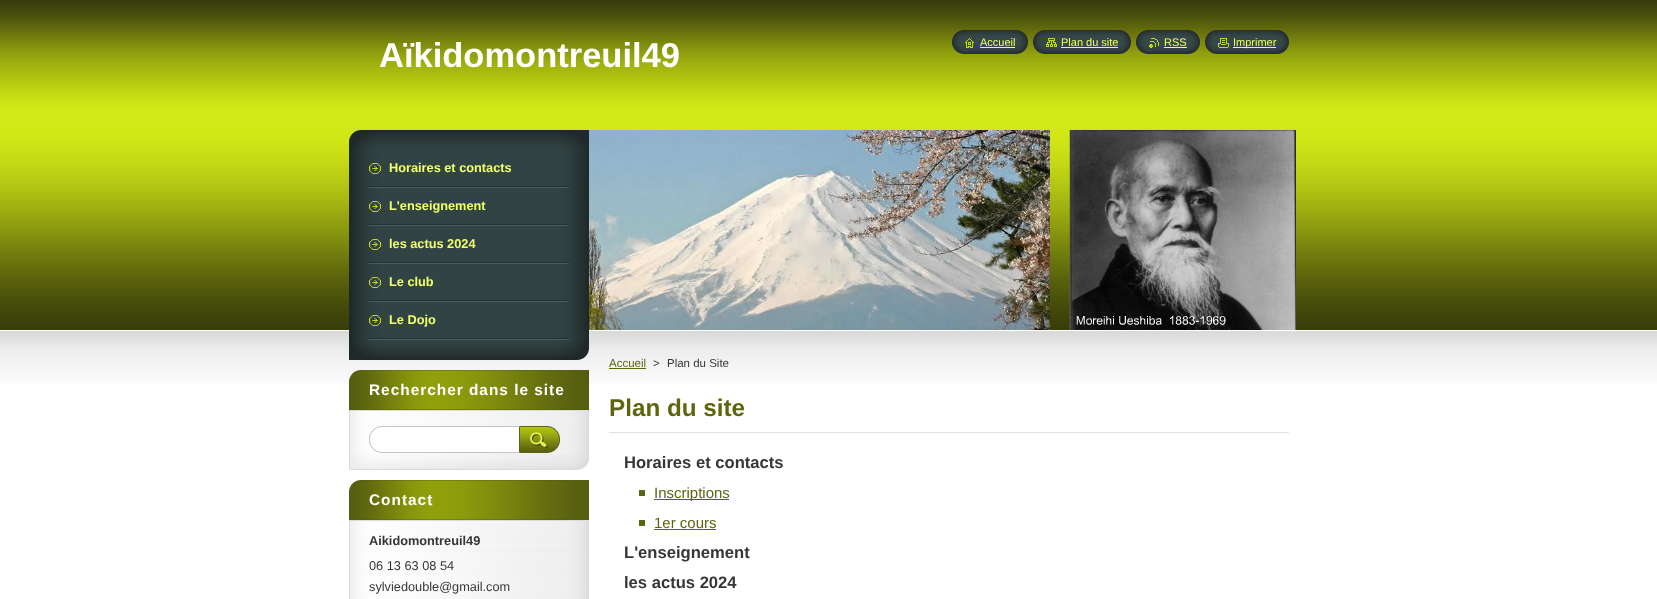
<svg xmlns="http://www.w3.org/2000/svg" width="1657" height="599">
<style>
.a{font:bold 34.5px Liberation Sans;fill:#fff}
.b{font:11px Liberation Sans;fill:#f0ff6d}
.c{font:bold 12.75px Liberation Sans;fill:#f0ff6d}
.d{font:bold 15.4px Liberation Sans;letter-spacing:1px;fill:#fff}
.e{font:bold 12.75px Liberation Sans;fill:#363636}
.f{font:12.75px Liberation Sans;fill:#363636}
.g{font:11.5px Liberation Sans;fill:#5d650e}
.h{font:11.5px Liberation Sans;fill:#363636}
.i{font:bold 24.25px Liberation Sans;fill:#5d650e}
.j{font:bold 16.6px Liberation Sans;fill:#363636}
.k{font:15px Liberation Sans;fill:#5d650e}
</style>
<rect width="100%" height="100%" fill="#fff"/>
<image href="1.png" x="0" y="0" width="1657" height="384"/>
<image href="2.png" x="952" y="30" width="13" height="24"/>
<image href="3.png" x="965" y="30" width="63" height="24"/>
<image href="4.png" x="965" y="38" width="9" height="10"/>
<path fill="#f0ff6d" d="M980 47h35v1H980z"/>
<image href="2.png" x="1033" y="30" width="13" height="24"/>
<image href="5.png" x="1046" y="30" width="85" height="24"/>
<image href="6.png" x="1046" y="38" width="11" height="9"/>
<path fill="#f0ff6d" d="M1061 47h57v1H1061z"/>
<image href="2.png" x="1136" y="30" width="13" height="24"/>
<image href="7.png" x="1149" y="30" width="51" height="24"/>
<image href="8.png" x="1149" y="38" width="10" height="10"/>
<path fill="#f0ff6d" d="M1164 47h23v1H1164z"/>
<image href="2.png" x="1205" y="30" width="13" height="24"/>
<image href="9.png" x="1218" y="30" width="71" height="24"/>
<image href="10.png" x="1218" y="38" width="11" height="10"/>
<path fill="#f0ff6d" d="M1233 47h43v1H1233z"/>
<image href="11.png" x="349" y="130" width="240" height="20"/>
<image href="12.png" x="349" y="340" width="240" height="20"/>
<image href="13.png" x="349" y="150" width="240" height="190"/>
<image href="14.png" x="369" y="186" width="200" height="2"/>
<image href="15.png" x="369" y="163" width="12" height="11"/>
<image href="14.png" x="369" y="224" width="200" height="2"/>
<image href="15.png" x="369" y="201" width="12" height="11"/>
<image href="14.png" x="369" y="262" width="200" height="2"/>
<image href="15.png" x="369" y="239" width="12" height="11"/>
<image href="14.png" x="369" y="300" width="200" height="2"/>
<image href="15.png" x="369" y="277" width="12" height="11"/>
<image href="14.png" x="369" y="338" width="200" height="2"/>
<image href="15.png" x="369" y="315" width="12" height="11"/>
<image href="16.png" x="349" y="453" width="240" height="17"/>
<image href="17.png" x="349" y="370" width="240" height="40"/>
<image href="18.png" x="349" y="411" width="240" height="42"/>
<path fill="#dbdbdb" d="M349 410h240v1H349z"/>
<image href="19.png" x="369" y="426" width="150" height="27"/>
<image href="20.png" x="519" y="426" width="41" height="27"/>
<image href="21.png" x="349" y="480" width="240" height="40"/>
<image href="22.png" x="349" y="521" width="240" height="78"/>
<path fill="#dbdbdb" d="M349 520h240v1H349z"/>
<image href="23.png" x="589" y="130" width="707" height="200"/>
<path fill="#5d650e" d="M609 368h37v1H609z"/>
<path fill="#e1e1e1" d="M609 432h680v1H609z"/>
<path fill="#5d650e" d="M639 490h6v6H639z"/>
<path fill="#5d650e" d="M654 499h75v1H654z"/>
<path fill="#5d650e" d="M639 520h6v6H639z"/>
<path fill="#5d650e" d="M654 529h62v1H654z"/>
<text class="a" x="379" y="67">Aïkidomontreuil49</text>
<text class="b" x="980" y="46">Accueil</text>
<text class="b" x="1061" y="46">Plan du site</text>
<text class="b" x="1164" y="46">RSS</text>
<text class="b" x="1233" y="46">Imprimer</text>
<text class="c" x="389" y="172">Horaires et contacts</text>
<text class="c" x="389" y="210">L'enseignement</text>
<text class="c" x="389" y="248">les actus 2024</text>
<text class="c" x="389" y="286">Le club</text>
<text class="c" x="389" y="324">Le Dojo</text>
<text class="d" x="369" y="395">Rechercher dans le site</text>
<text class="d" x="369" y="505">Contact</text>
<text class="e" x="369" y="545">Aikidomontreuil49</text>
<text class="f" x="369" y="570">06 13 63 08 54</text>
<text class="f" x="369" y="591">sylviedouble@gmail.com</text>
<text class="g" x="609" y="367">Accueil</text>
<text class="h" x="653" y="367">&gt;</text>
<text class="h" x="667" y="367">Plan du Site</text>
<text class="i" x="609" y="416">Plan du site</text>
<text class="j" x="624" y="468">Horaires et contacts</text>
<text class="k" x="654" y="498">Inscriptions</text>
<text class="k" x="654" y="528">1er cours</text>
<text class="j" x="624" y="558">L'enseignement</text>
<text class="j" x="624" y="588">les actus 2024</text>
</svg>
